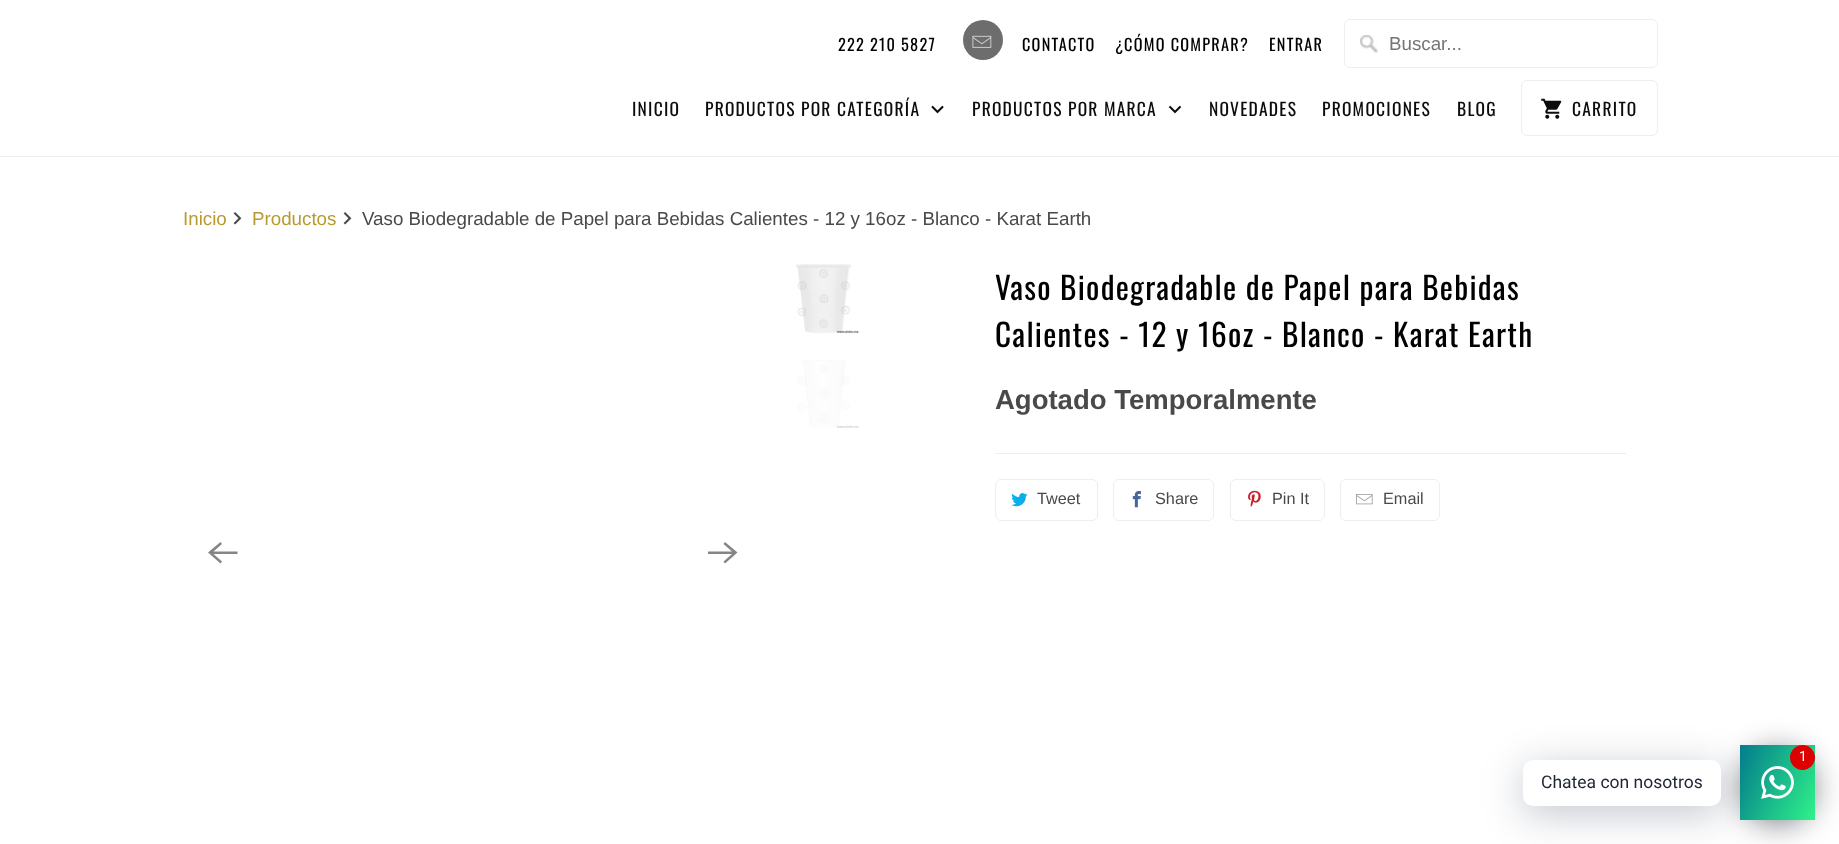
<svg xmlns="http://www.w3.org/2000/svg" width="1839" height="844">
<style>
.a{font:16.25px Oswald;letter-spacing:1.25px;fill:#000}
.b{font:18.75px Liberation Sans;fill:#757575}
.c{font:17.5px Oswald;letter-spacing:1.25px;fill:#0c0c0c}
.d{font:18.75px Liberation Sans;fill:#b99a30}
.e{font:18.75px Liberation Sans;fill:#494949}
.f{font:31.25px Oswald;letter-spacing:1.25px;fill:#000}
.g{font:bold 27.5px Liberation Sans;fill:#494949}
.h{font:16.25px Liberation Sans;fill:#494949}
.i{font:14px Roboto;fill:#fff}
.j{font:17.5px Roboto;fill:#1e2433}
</style>
<defs>
<linearGradient id="g1" gradientUnits="userSpaceOnUse" x1="1732" y1="761" x2="1823" y2="804"><stop offset="0" stop-color="#047c8d"/><stop offset="1" stop-color="#2ff289"/></linearGradient>
</defs>
<rect width="100%" height="100%" fill="#fff"/>
<path fill="#eee" d="M0 156h1839v1H0z"/>
<circle fill="#6d6d6d" cx="983" cy="40" r="20"/>
<image href="1.png" x="972" y="35" width="20" height="13"/>
<image href="2.png" x="1360" y="35" width="18" height="18"/>
<rect fill="none" stroke="#eee" x="1344.5" y="19.5" width="313" height="48" rx="5.5"/>
<image href="3.png" x="931" y="105" width="13" height="9"/>
<image href="4.png" x="1168" y="105" width="14" height="9"/>
<rect fill="none" stroke="#eee" x="1521.5" y="80.5" width="136" height="55" rx="5.5"/>
<image href="5.png" x="1541" y="98" width="21" height="21"/>
<image href="6.png" x="233" y="212" width="9" height="13"/>
<image href="6.png" x="343" y="212" width="9" height="13"/>
<image href="7.png" x="796" y="264" width="63" height="70"/>
<image href="8.png" x="798" y="360" width="61" height="68"/>
<path fill="#858585" d="M237.5 551.5h-24l8.5-7.5l-1.5-2l-12.5 10.5l12.5 11l1.5-2l-8.5-7.5h24z"/>
<path fill="#858585" d="M708 554h24l-8.5 7.5l1.5 2l12.5-11l-12.5-10.5l-1.5 2l8.5 7.5h-24z"/>
<path fill="#eee" d="M995 453h631v1H995z"/>
<rect fill="none" stroke="#eee" x="995.5" y="479.5" width="102" height="41" rx="5.5"/>
<image href="9.png" x="1011" y="493" width="17" height="14"/>
<rect fill="none" stroke="#eee" x="1113.5" y="479.5" width="100" height="41" rx="5.5"/>
<image href="10.png" x="1132" y="491" width="9" height="17"/>
<rect fill="none" stroke="#eee" x="1230.5" y="479.5" width="94" height="41" rx="5.5"/>
<image href="11.png" x="1248" y="490" width="13" height="17"/>
<rect fill="none" stroke="#eee" x="1340.5" y="479.5" width="99" height="41" rx="5.5"/>
<image href="12.png" x="1356" y="494" width="17" height="11"/>
<rect fill="#02061080" filter="blur(15px)" x="1740" y="750" width="75" height="75" rx="37.5"/>
<path fill="url(#g1)" d="M1740 745h75v75H1740z"/>
<rect fill="#00122e3d" filter="blur(20px)" x="1523" y="768" width="198" height="46" rx="10"/>
<image href="13.png" x="1761" y="766" width="33" height="33"/>
<circle fill="#d00" cx="1802.5" cy="757.5" r="12.5"/>
<rect fill="#fff" x="1523" y="760" width="198" height="46" rx="10"/>
<text class="a" x="838" y="51">222 210 5827</text>
<text class="a" x="1022" y="51">CONTACTO</text>
<text class="a" x="1115" y="51">¿CÓMO COMPRAR?</text>
<text class="a" x="1269" y="51">ENTRAR</text>
<text class="b" x="1389" y="50">Buscar...</text>
<text class="c" x="632" y="116">INICIO</text>
<text class="c" x="705" y="116">PRODUCTOS POR CATEGORÍA</text>
<text class="c" x="972" y="116">PRODUCTOS POR MARCA</text>
<text class="c" x="1209" y="116">NOVEDADES</text>
<text class="c" x="1322" y="116">PROMOCIONES</text>
<text class="c" x="1457" y="116">BLOG</text>
<text class="c" x="1572" y="116">CARRITO</text>
<text class="d" x="183" y="225">Inicio</text>
<text class="d" x="252" y="225">Productos</text>
<text class="e" x="362" y="225">Vaso Biodegradable de Papel para Bebidas Calientes - 12 y 16oz - Blanco - Karat Earth</text>
<text class="f" x="995" y="300">Vaso Biodegradable de Papel para Bebidas</text>
<text class="f" x="995" y="347">Calientes - 12 y 16oz - Blanco - Karat Earth</text>
<text class="g" x="995" y="409">Agotado Temporalmente</text>
<text class="h" x="1037" y="504">Tweet</text>
<text class="h" x="1155" y="504">Share</text>
<text class="h" x="1272" y="504">Pin It</text>
<text class="h" x="1383" y="504">Email</text>
<text class="i" x="1799" y="761">1</text>
<text class="j" x="1541" y="788">Chatea con nosotros</text>
</svg>
